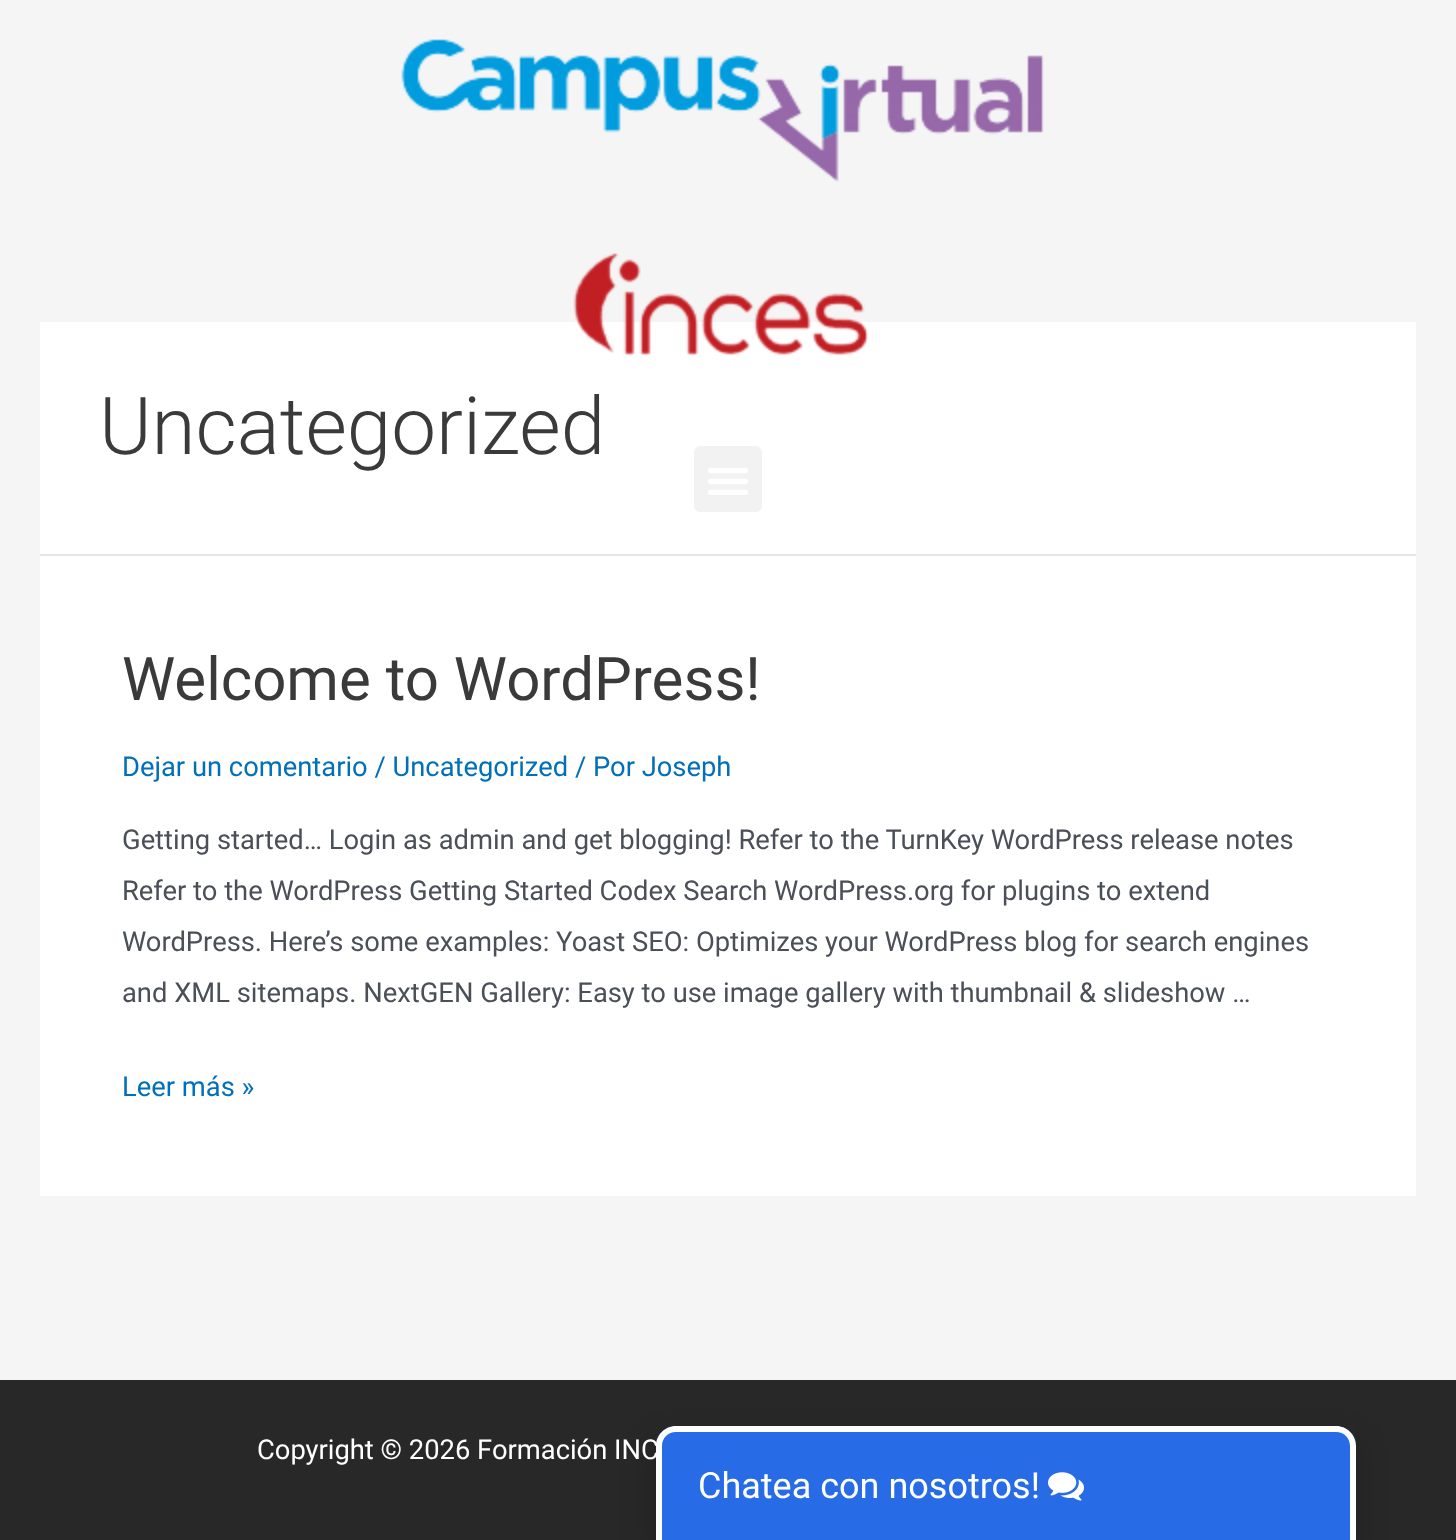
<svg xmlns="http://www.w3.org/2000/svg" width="1456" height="1540">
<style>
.a{font:300 80px Roboto;fill:#3a3a3a}
.b{font:60px Roboto;fill:#3a3a3a}
.c{font:27.35px Roboto;fill:#0170b9}
.d{font:27.35px Roboto;fill:#4b4f58}
.e{font:27.35px Roboto;fill:#fff}
.f{font:36px Roboto;fill:#fff}
</style>
<defs>
<clipPath id="clip1"><path d="M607 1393h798v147h-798zm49 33h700v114h-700z" clip-rule="evenodd"/></clipPath>
</defs>
<rect width="100%" height="100%" fill="#f5f5f5"/>
<image href="1.png" x="401" y="39" width="643" height="143"/>
<path fill="#fff" d="M40 322h1376v232H40z"/>
<image href="2.png" x="573" y="253" width="296" height="103"/>
<rect fill="#f2f2f2" x="694" y="446" width="68" height="66" rx="6"/>
<image href="3.png" x="708" y="468" width="40" height="27"/>
<path fill="#e5e5e5" d="M40 554h1376v2H40z"/>
<path fill="#fff" d="M40 556h1376v640H40z"/>
<path fill="#282829" d="M0 1380h1456v160H0z"/>
<g clip-path="url(#clip1)">
<path fill="#00000033" filter="blur(16px)" d="M656 1442h700v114H656z"/>
</g>
<text class="a" x="99" y="454">Uncategorized</text>
<text class="b" x="122" y="700">Welcome to WordPress!</text>
<text class="c" x="122" y="776">Dejar un comentario / Uncategorized / Por Joseph</text>
<text class="d" x="122" y="849">Getting started… Login as admin and get blogging! Refer to the TurnKey WordPress release notes</text>
<text class="d" x="122" y="900">Refer to the WordPress Getting Started Codex Search WordPress.org for plugins to extend</text>
<text class="d" x="122" y="951">WordPress. Here’s some examples: Yoast SEO: Optimizes your WordPress blog for search engines</text>
<text class="d" x="122" y="1002">and XML sitemaps. NextGEN Gallery: Easy to use image gallery with thumbnail &amp; slideshow …</text>
<text class="c" x="122" y="1096">Leer más »</text>
<text class="e" x="257" y="1459">Copyright © 2026 Formación INC</text>
<path fill="#286be6" d="M676 1426h660c11 0 20 9 20 20v94h-700v-94c0-11 9-20 20-20z"/>
<path fill="#fff" fill-rule="evenodd" d="M676 1426h660c11 0 20 9 20 20v94h-700v-94c0-11 9-20 20-20zm0 6h660c8 0 14 6 14 14v94h-688v-94c0-8 6-14 14-14z"/>
<text class="f" x="698" y="1498">Chatea con nosotros!</text>
<image href="4.png" x="1048" y="1472" width="36" height="29"/>
</svg>
